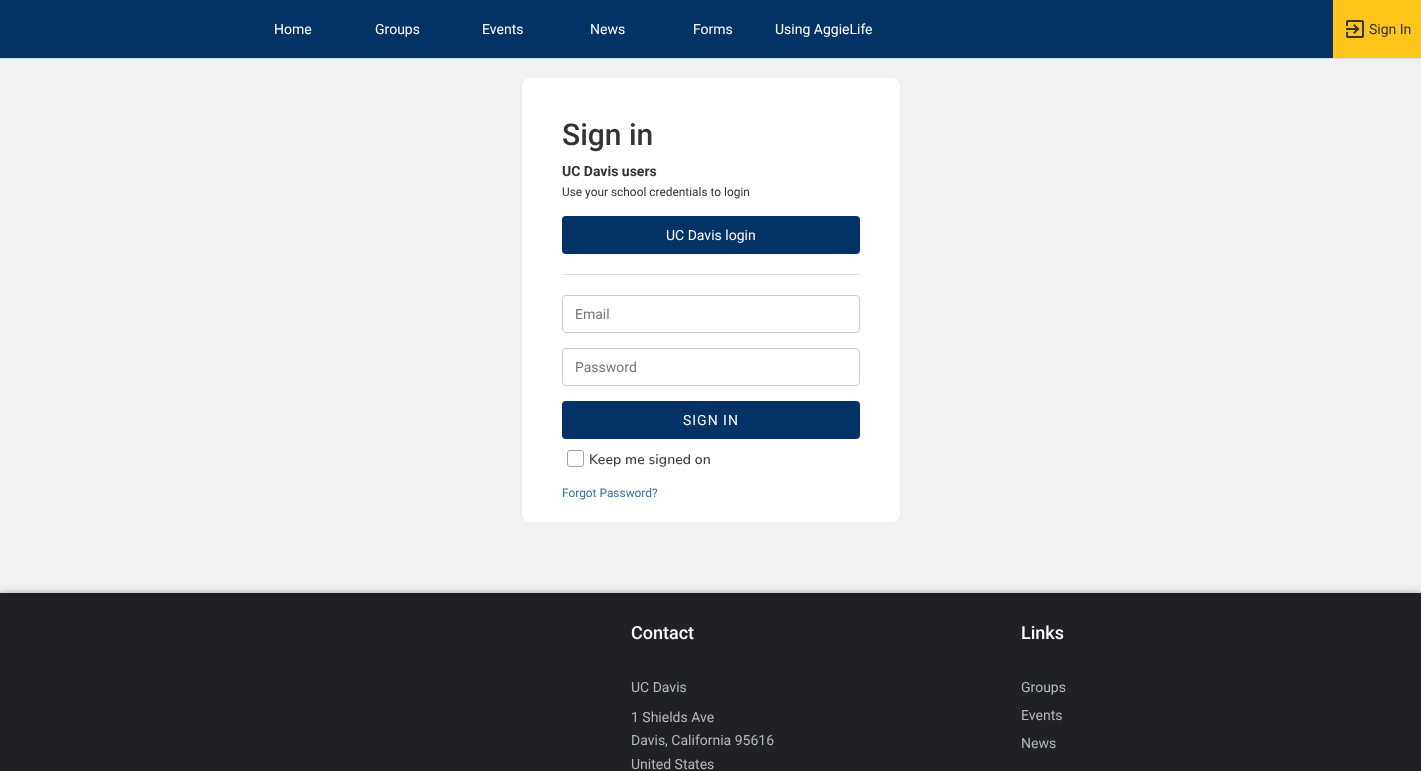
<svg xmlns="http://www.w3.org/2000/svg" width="1421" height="771">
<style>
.a{font:14px Roboto;fill:#fff}
.b{font:14px Roboto;fill:#333}
.c{font:500 30px Roboto;fill:#333}
.d{font:bold 14px Roboto;fill:#333}
.e{font:11.9px Roboto;fill:#333}
.f{font:14px Roboto;fill:#757575}
.g{font:14px Roboto;letter-spacing:1px;fill:#fff}
.h{font:500 14px Nunito Sans;letter-spacing:0.1px;fill:#313a46}
.i{font:11.9px Roboto;fill:#3071ab}
.j{font:500 18px Roboto;fill:#fff}
.k{font:14px Roboto;fill:#b3b9bd}
</style>
<rect width="100%" height="100%" fill="#f1f1f1"/>
<path fill="#033266" d="M0 0h1333v58H0z"/>
<path fill="#d9d9d9" d="M0 58h1421v1H0z"/>
<path fill="#ffc519" d="M1333 0h88v58H1333z"/>
<image href="1.png" x="1346" y="20" width="18" height="18"/>
<rect fill="#fff" stroke="#ececec" x="521.5" y="77.5" width="379" height="445" rx="7.5"/>
<rect fill="#033266" x="562" y="216" width="298" height="38" rx="4"/>
<path fill="#e0e0e0" d="M562 274h298v1H562z"/>
<rect fill="none" stroke="#ccc" x="562.5" y="295.5" width="297" height="37" rx="3.5"/>
<rect fill="none" stroke="#ccc" x="562.5" y="348.5" width="297" height="37" rx="3.5"/>
<rect fill="#033266" x="562" y="401" width="298" height="38" rx="4"/>
<rect fill="none" stroke="#98a6ad" x="567.5" y="450.5" width="16" height="16" rx="2.5"/>
<rect fill="#fff" x="569" y="451" width="13" height="13" rx="2"/>
<path fill="#00000024" filter="blur(5px)" d="M0 592h1421v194H0z"/>
<path fill="#0000001a" filter="blur(1.5px)" d="M0 592h1421v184H0z"/>
<path fill="#202124" d="M0 593h1421v178H0z"/>
<text class="a" x="274" y="34">Home</text>
<text class="a" x="375" y="34">Groups</text>
<text class="a" x="482" y="34">Events</text>
<text class="a" x="590" y="34">News</text>
<text class="a" x="693" y="34">Forms</text>
<text class="a" x="775" y="34">Using AggieLife</text>
<text class="b" x="1369" y="34">Sign In</text>
<text class="c" x="562" y="145">Sign in</text>
<text class="d" x="562" y="176">UC Davis users</text>
<text class="e" x="562" y="196">Use your school credentials to login</text>
<text class="a" x="666" y="240">UC Davis login</text>
<text class="f" x="575" y="319">Email</text>
<text class="f" x="575" y="372">Password</text>
<text class="g" x="683" y="425">SIGN IN</text>
<text class="h" x="589" y="464">Keep me signed on</text>
<text class="i" x="562" y="497">Forgot Password?</text>
<text class="j" x="631" y="639">Contact</text>
<text class="k" x="631" y="692">UC Davis</text>
<text class="k" x="631" y="722">1 Shields Ave</text>
<text class="k" x="631" y="745">Davis, California 95616</text>
<text class="k" x="631" y="769">United States</text>
<text class="j" x="1021" y="639">Links</text>
<text class="k" x="1021" y="692">Groups</text>
<text class="k" x="1021" y="720">Events</text>
<text class="k" x="1021" y="748">News</text>
</svg>
